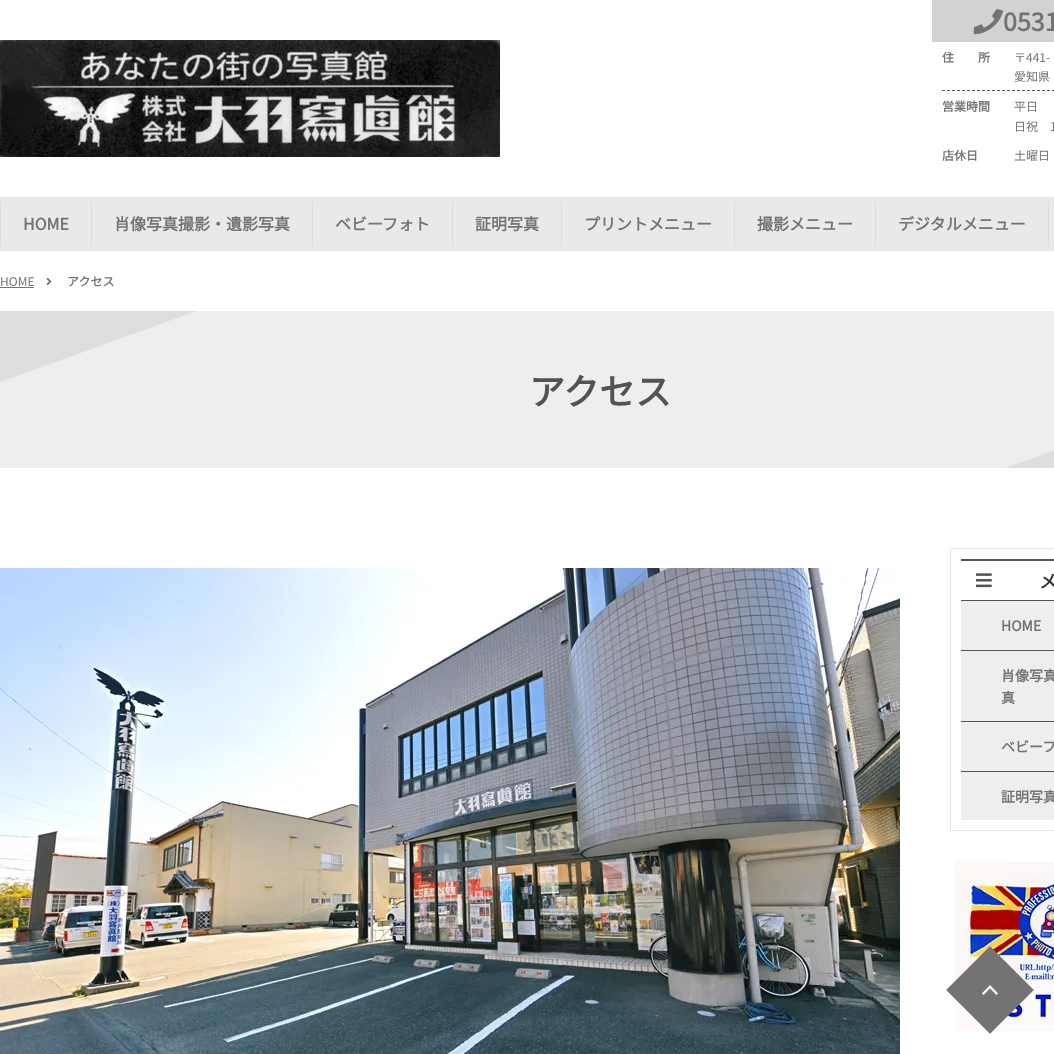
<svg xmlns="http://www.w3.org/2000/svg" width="1054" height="1054">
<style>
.a{font:bold 25px Noto Sans JP;fill:#737373}
.b{font:bold 12px Noto Sans JP;fill:#737373}
.c{font:100 12px Noto Sans JP;fill:#737373}
.d{font:bold 16px Noto Sans JP;fill:#737373}
.e{font:bold 36px Noto Sans JP;fill:#535353}
.f{font:bold 18px Noto Sans JP;fill:#333}
.g{font:bold 14px Noto Sans JP;fill:#737373}
</style>
<rect width="100%" height="100%" fill="#fff"/>
<image href="1.png" x="0" y="40" width="500" height="117"/>
<path fill="#d2d2d2" d="M932 0h122v42H932z"/>
<image href="2.png" x="973" y="9" width="30" height="26"/>
<path fill="none" stroke="#595959" stroke-dasharray="3 2" d="M942 90.5h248"/>
<path fill="#eae9e7" d="M0 197h1054v54H0z"/>
<path fill="#dcdcdc" d="M0 201h1v46H0z"/>
<path fill="#dcdcdc" d="M91 201h1v46H91z"/>
<path fill="#dcdcdc" d="M312 201h1v46H312z"/>
<path fill="#dcdcdc" d="M452 201h1v46H452z"/>
<path fill="#dcdcdc" d="M561 201h1v46H561z"/>
<path fill="#dcdcdc" d="M734 201h1v46H734z"/>
<path fill="#dcdcdc" d="M875 201h1v46H875z"/>
<path fill="#dcdcdc" d="M1048 201h1v46H1048z"/>
<path fill="#737373" d="M0 287h34v1H0z"/>
<image href="3.png" x="46" y="277" width="6" height="9"/>
<image href="4.png" x="0" y="311" width="1054" height="157"/>
<image href="5.png" x="0" y="568" width="900" height="486"/>
<path fill="none" stroke="#e5e5e5" d="M950.5 548.5h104v282H950.5z"/>
<path fill="#535353" d="M961 559h93v2H961z"/>
<image href="6.png" x="976" y="573" width="16" height="15"/>
<path fill="#eee" d="M961 601h93v49H961z"/>
<path fill="#535353" d="M961 600h93v1H961z"/>
<path fill="#eee" d="M961 651h93v70H961z"/>
<path fill="#535353" d="M961 650h93v1H961z"/>
<path fill="#eee" d="M961 722h93v49H961z"/>
<path fill="#535353" d="M961 721h93v1H961z"/>
<path fill="#eee" d="M961 772h93v48H961z"/>
<path fill="#535353" d="M961 771h93v1H961z"/>
<image href="7.png" x="955" y="861" width="99" height="170"/>
<image href="8.png" x="946" y="946" width="88" height="88"/>
<text class="a" x="1003" y="31">0531</text>
<text class="b" x="942" y="62">住  所</text>
<text class="c" x="1014" y="62">〒441-</text>
<text class="c" x="1014" y="81">愛知県</text>
<text class="b" x="942" y="111">営業時間</text>
<text class="c" x="1014" y="111">平日</text>
<text class="c" x="1014" y="131">日祝　1</text>
<text class="b" x="942" y="160">店休日</text>
<text class="c" x="1014" y="160">土曜日</text>
<text class="d" x="23" y="230">HOME</text>
<text class="d" x="114" y="230">肖像写真撮影・遺影写真</text>
<text class="d" x="335" y="230">ベビーフォト</text>
<text class="d" x="475" y="230">証明写真</text>
<text class="d" x="584" y="230">プリントメニュー</text>
<text class="d" x="757" y="230">撮影メニュー</text>
<text class="d" x="898" y="230">デジタルメニュー</text>
<text class="c" x="0" y="286">HOME</text>
<text class="b" x="67" y="286">アクセス</text>
<text class="e" x="529" y="405">アクセス</text>
<text class="f" x="1039" y="588">メ</text>
<text class="g" x="1001" y="631">HOME</text>
<text class="g" x="1001" y="681">肖像写真</text>
<text class="g" x="1001" y="703">真</text>
<text class="g" x="1001" y="752">ベビーフ</text>
<text class="g" x="1001" y="802">証明写真</text>
</svg>
